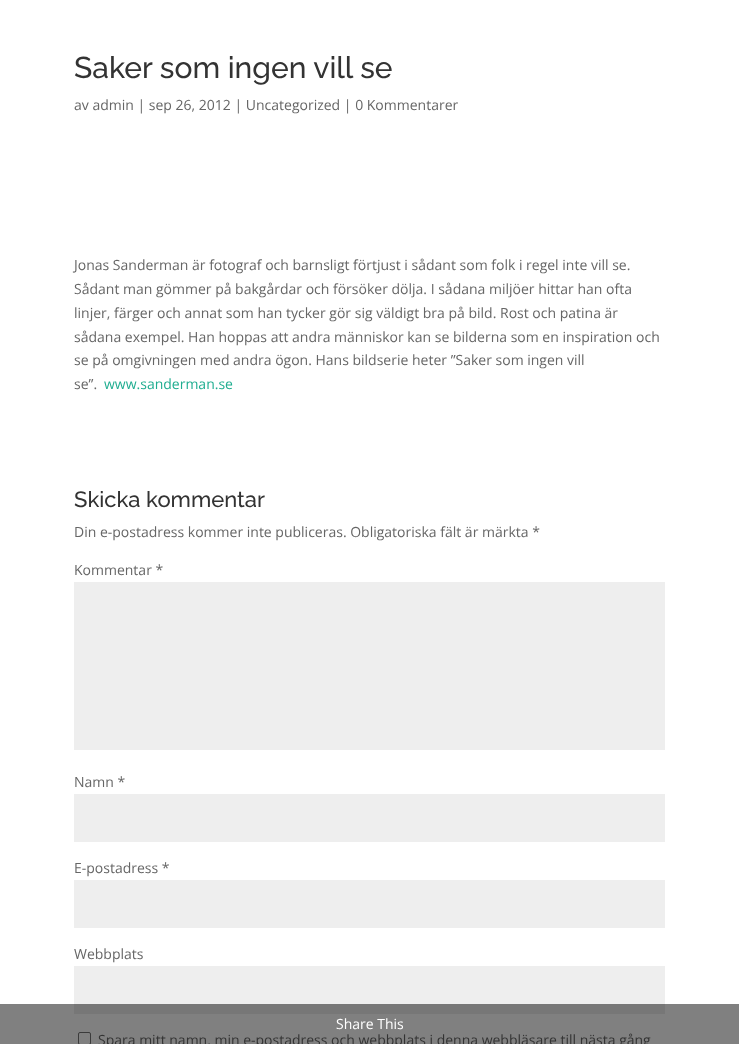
<svg xmlns="http://www.w3.org/2000/svg" width="739" height="1044">
<style>
.a{font:500 30px Raleway;fill:#333}
.b{font:14px Open Sans;fill:#666}
.c{font:14px Open Sans;fill:#1fad90}
.d{font:500 22px Raleway;fill:#333}
.e{font:14px Open Sans;fill:#333}
.f{font:14px Open Sans;fill:#fff}
</style>
<rect width="100%" height="100%" fill="#fff"/>
<path fill="#808080" d="M0 1004h739v40H0z"/>
<path fill="#eee" d="M74 582h591v168H74z"/>
<path fill="#eee" d="M74 794h591v48H74z"/>
<path fill="#eee" d="M74 880h591v48H74z"/>
<path fill="#eee" d="M74 966h591v38H74z"/>
<path fill="#777" d="M74 1004h591v10H74z"/>
<rect fill="none" stroke="#3b3b3b" x="78.5" y="1032.5" width="12" height="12" rx="1.5"/>
<text class="a" x="74" y="78">Saker som ingen vill se</text>
<text class="b" x="74" y="110">av admin | sep 26, 2012 | Uncategorized | 0 Kommentarer</text>
<text class="b" x="74" y="270">Jonas Sanderman är fotograf och barnsligt förtjust i sådant som folk i regel inte vill se.</text>
<text class="b" x="74" y="294">Sådant man gömmer på bakgårdar och försöker dölja. I sådana miljöer hittar han ofta</text>
<text class="b" x="74" y="318">linjer, färger och annat som han tycker gör sig väldigt bra på bild. Rost och patina är</text>
<text class="b" x="74" y="342">sådana exempel. Han hoppas att andra människor kan se bilderna som en inspiration och</text>
<text class="b" x="74" y="365">se på omgivningen med andra ögon. Hans bildserie heter ”Saker som ingen vill</text>
<text class="b" x="74" y="389">se”.</text>
<text class="c" x="104" y="389">www.sanderman.se</text>
<text class="d" x="74" y="507">Skicka kommentar</text>
<text class="b" x="74" y="537">Din e-postadress kommer inte publiceras. Obligatoriska fält är märkta *</text>
<text class="b" x="74" y="575">Kommentar *</text>
<text class="b" x="74" y="787">Namn *</text>
<text class="b" x="74" y="873">E-postadress *</text>
<text class="b" x="74" y="959">Webbplats</text>
<text class="e" x="98" y="1045">Spara mitt namn, min e-postadress och webbplats i denna webbläsare till nästa gång</text>
<text class="f" x="336" y="1029">Share This</text>
</svg>
